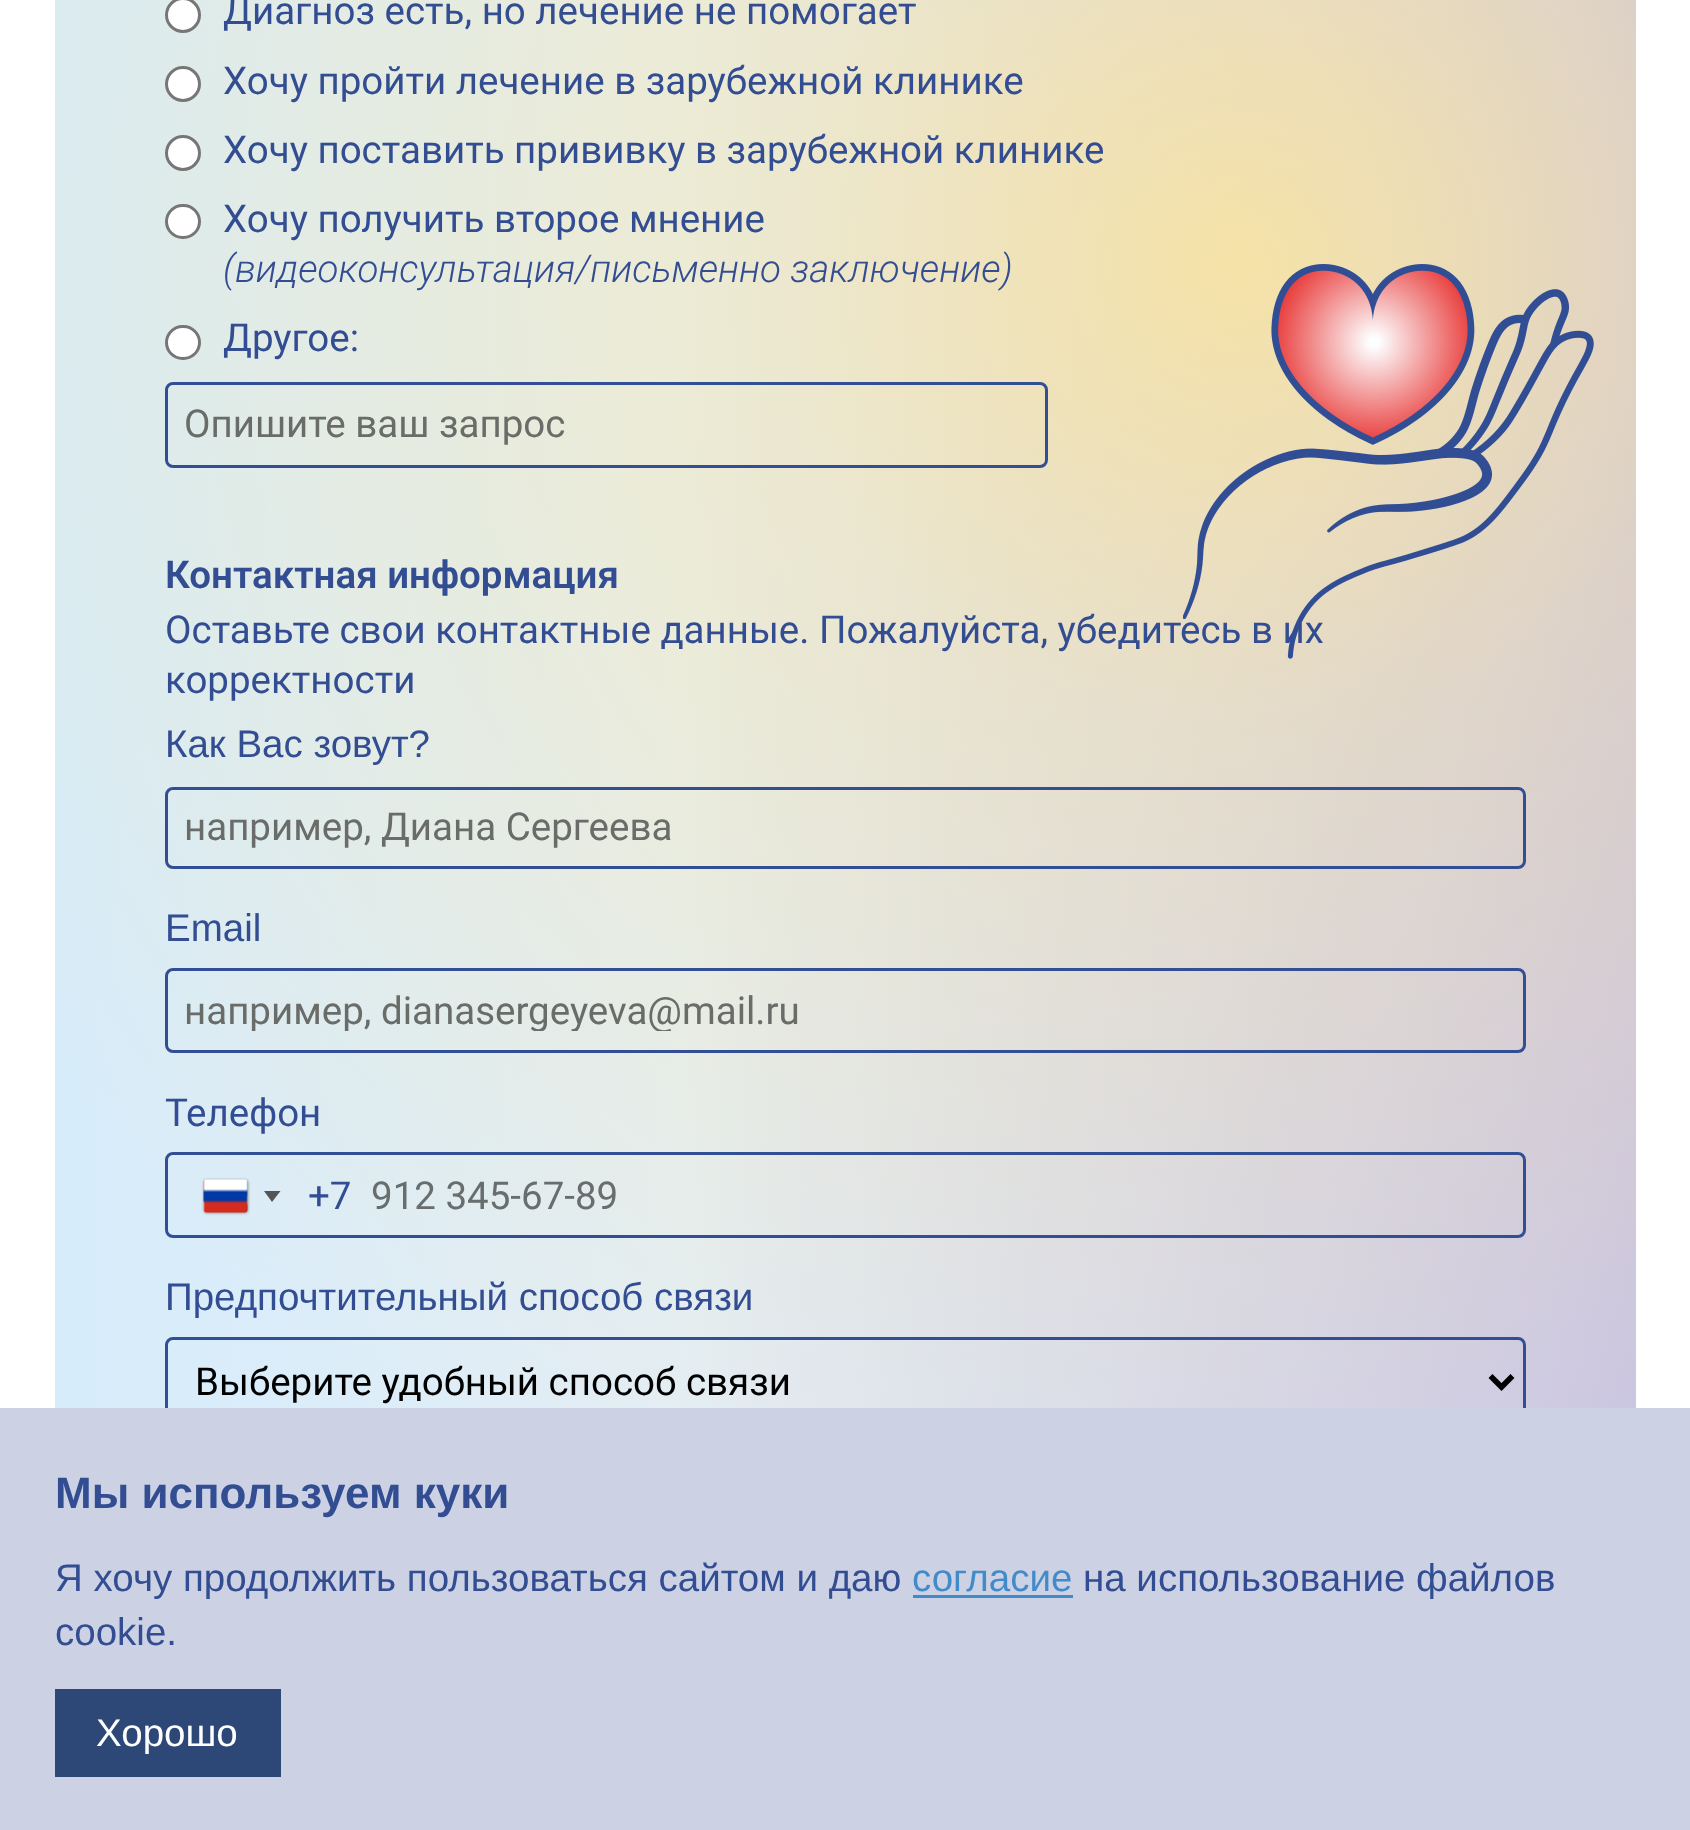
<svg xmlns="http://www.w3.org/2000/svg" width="1690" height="1830">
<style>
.a{font:38.5px Roboto;fill:#334d93}
.b{font:italic 300 38.5px Roboto;fill:#334d93}
.c{font:38.5px Roboto;fill:#696c68}
.d{font:600 38.5px Roboto;fill:#334d93}
.e{font:38.5px Liberation Sans;fill:#334d93}
.f{font:38.5px Roboto;fill:#686d6e}
.g{font:38.5px Roboto;fill:#000}
.h{font:bold 44px Liberation Sans;fill:#334d93}
.i{font:38.5px Liberation Sans;fill:#428bca}
.j{font:38.5px Liberation Sans;fill:#fff}
</style>
<defs>
<linearGradient id="g1" gradientUnits="userSpaceOnUse" x1="55" y1="957" x2="1636" y2="957"><stop offset="0" stop-color="#d7ecfa"/><stop offset="0.4" stop-color="#e2eef9"/><stop offset="1" stop-color="#c6c3e9"/></linearGradient>
<radialGradient id="g2" gradientUnits="userSpaceOnUse" cx="1241" cy="265" r="2390"><stop offset="0" stop-color="#ffe696" stop-opacity="0.8"/><stop offset="0.2" stop-color="#ffe696" stop-opacity="0.4"/><stop offset="0.6" stop-color="#ffe696" stop-opacity="0"/></radialGradient>
<clipPath id="clip1"><path d="M184 987h1323v44H184z"/></clipPath>
</defs>
<rect width="100%" height="100%" fill="#fff"/>
<path fill="url(#g1)" d="M55 0h1581v1408H55z"/>
<path fill="url(#g2)" d="M55 0h1581v1408H55z"/>
<circle fill="#fff" stroke="#767676" stroke-width="3" cx="183" cy="15" r="16.5"/>
<circle fill="#fff" stroke="#767676" stroke-width="3" cx="183" cy="84" r="16.5"/>
<circle fill="#fff" stroke="#767676" stroke-width="3" cx="183" cy="153" r="16.5"/>
<rect fill="#fff" stroke="#767676" stroke-width="3" x="166.5" y="205.5" width="33" height="32" rx="16"/>
<rect fill="#fff" stroke="#767676" stroke-width="3" x="166.5" y="326.5" width="33" height="32" rx="16"/>
<rect fill="none" stroke="#324e94" stroke-width="3" x="166.5" y="383.5" width="880" height="83" rx="6.5"/>
<image href="1.png" x="1183" y="264" width="411" height="395"/>
<rect fill="none" stroke="#324e94" stroke-width="3" x="166.5" y="788.5" width="1358" height="79" rx="6.5"/>
<rect fill="none" stroke="#324e94" stroke-width="3" x="166.5" y="969.5" width="1358" height="82" rx="6.5"/>
<rect fill="none" stroke="#324e94" stroke-width="3" x="166.5" y="1153.5" width="1358" height="83" rx="6.5"/>
<rect fill="#888" filter="blur(1.5px)" x="204" y="1180" width="44" height="33" rx="3"/>
<image href="2.png" x="203" y="1179" width="45" height="34"/>
<path fill="#555" d="M264 1191h16.5l-8.5 11z"/>
<rect fill="none" stroke="#324e94" stroke-width="3" x="166.5" y="1338.5" width="1358" height="85" rx="6.5"/>
<path fill="none" stroke="#000" stroke-width="5.5" d="M1490.5 1376l11 11l11-11"/>
<path fill="#ccd2e4" d="M0 1408h1690v422H0z"/>
<path fill="#428bca" d="M913 1595h160v3H913z"/>
<path fill="#2d4877" d="M55 1689h226v88H55z"/>
<text class="a" x="223" y="24">Диагноз есть, но лечение не помогает</text>
<text class="a" x="223" y="94">Хочу пройти лечение в зарубежной клинике</text>
<text class="a" x="223" y="163">Хочу поставить прививку в зарубежной клинике</text>
<text class="a" x="223" y="232">Хочу получить второе мнение</text>
<text class="b" x="223" y="282">(видеоконсультация/письменно заключение)</text>
<text class="a" x="223" y="351">Другое:</text>
<text class="c" x="184" y="437">Опишите ваш запрос</text>
<text class="d" x="165" y="588">Контактная информация</text>
<text class="a" x="165" y="643">Оставьте свои контактные данные. Пожалуйста, убедитесь в их</text>
<text class="a" x="165" y="693">корректности</text>
<text class="e" x="165" y="757">Как Вас зовут?</text>
<text class="c" x="184" y="840">например, Диана Сергеева</text>
<text class="e" x="165" y="941">Email</text>
<g clip-path="url(#clip1)">
<text class="c" x="184" y="1024">например, dianasergeyeva@mail.ru</text>
</g>
<text class="a" x="165" y="1126">Телефон</text>
<text class="a" x="308" y="1209">+7</text>
<text class="f" x="371" y="1209">912 345-67-89</text>
<text class="e" x="165" y="1310">Предпочтительный способ связи</text>
<text class="g" x="195" y="1395">Выберите удобный способ связи</text>
<text class="h" x="55" y="1508">Мы используем куки</text>
<text class="e" x="55" y="1591">Я хочу продолжить пользоваться сайтом и даю</text>
<text class="i" x="912" y="1591">согласие</text>
<text class="e" x="1083" y="1591">на использование файлов</text>
<text class="e" x="55" y="1645">cookie.</text>
<text class="j" x="96" y="1746">Хорошо</text>
</svg>
